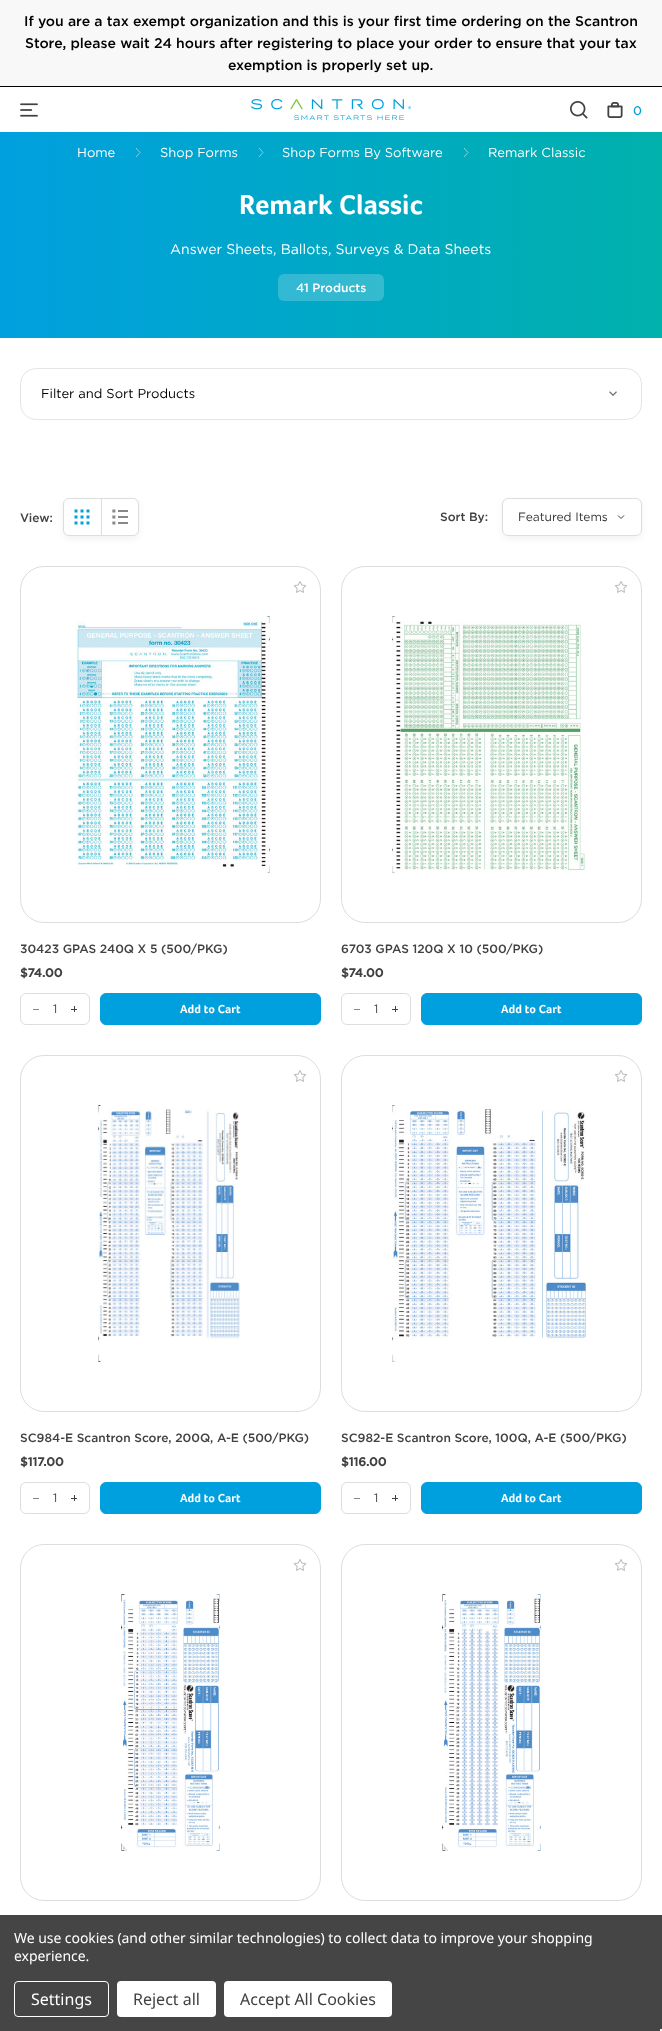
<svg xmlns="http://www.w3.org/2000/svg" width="662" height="2031">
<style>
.a{font:500 14px Gotham;fill:#000}
.b{font:bold 12px 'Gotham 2';fill:#00a0df}
.c{font:13px Gotham;fill:#fff}
.d{font:bold 28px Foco;fill:#fff}
.e{font:14px Gotham;fill:#fff}
.f{font:500 12px Gotham;fill:#fff}
.g{font:13px Gotham;fill:#000}
.h{font:500 12px Gotham;fill:#414042}
.i{font:12px Gotham;fill:#333}
.j{font:bold 12px Gotham;fill:#414042}
.k{font:12px Gotham;fill:#414042}
.l{font:bold 12px Foco;fill:#fff}
.m{font:14px Noto Sans;letter-spacing:-0.05px;fill:#fff}
.n{font:16px Noto Sans;fill:#fff}
.o{font:16px Noto Sans;fill:#414042}
</style>
<defs>
<linearGradient id="g1" gradientUnits="userSpaceOnUse" x1="0" y1="235" x2="662" y2="235"><stop offset="0" stop-color="#00a0df"/><stop offset="1" stop-color="#00b1ac"/></linearGradient>
</defs>
<rect width="100%" height="100%" fill="#fff"/>
<path fill="#f8f8f8" d="M0 0h662v86H0z"/>
<path fill="#000" d="M0 86h662v1H0z"/>
<image href="1.png" x="20" y="103" width="18" height="14"/>
<image href="2.png" x="251" y="99" width="160" height="21"/>
<image href="3.png" x="570" y="101" width="18" height="18"/>
<image href="4.png" x="607" y="102" width="16" height="16"/>
<path fill="url(#g1)" d="M0 132h662v206H0z"/>
<path fill="none" stroke="#80d2ea" d="M136 148l4 4.5l-4 4.5"/>
<path fill="none" stroke="#80d3e5" d="M259 148l4 4.5l-4 4.5"/>
<path fill="none" stroke="#80d6dd" d="M464 148l4 4.5l-4 4.5"/>
<rect fill="#ffffff33" x="278" y="274" width="106" height="27" rx="6"/>
<rect fill="none" stroke="#e5e5e5" x="20.5" y="368.5" width="621" height="51" rx="15.5"/>
<image href="5.png" x="609" y="391" width="8" height="5"/>
<rect fill="#0000000d" filter="blur(3px)" x="63" y="501" width="76" height="38" rx="6"/>
<rect fill="#fff" stroke="#ddd" x="63.5" y="498.5" width="75" height="37" rx="5.5"/>
<image href="6.png" x="74" y="509" width="16" height="16"/>
<path fill="#ddd" d="M101 499h1v36H101z"/>
<image href="7.png" x="112" y="509" width="16" height="16"/>
<rect fill="#0000000d" filter="blur(3px)" x="502" y="501" width="140" height="38" rx="6"/>
<rect fill="#fff" x="502" y="498" width="140" height="38" rx="6"/>
<path fill="none" stroke="#414042" d="M618 515.5l3 3l3-3"/>
<rect fill="none" stroke="#ddd" x="502.5" y="498.5" width="139" height="37" rx="5.5"/>
<rect fill="none" stroke="#ddd" x="20.5" y="566.5" width="300" height="356" rx="23.5"/>
<image href="8.png" x="293" y="581" width="14" height="12"/>
<image href="9.png" x="76" y="616" width="194" height="257"/>
<rect fill="none" stroke="#ddd" x="20.5" y="993.5" width="69" height="31" rx="5.5"/>
<path fill="#888" d="M33 1009h6v1H33z"/>
<path fill="#414042" d="M71 1009h6v1H71z"/>
<path fill="#414042" d="M74 1006h1v6H74z"/>
<rect fill="#00a0df" stroke="#00a0df" x="100.5" y="993.5" width="220" height="31" rx="5.5"/>
<rect fill="none" stroke="#ddd" x="341.5" y="566.5" width="300" height="356" rx="23.5"/>
<image href="8.png" x="614" y="581" width="14" height="12"/>
<image href="10.png" x="392" y="616" width="194" height="257"/>
<rect fill="none" stroke="#ddd" x="341.5" y="993.5" width="69" height="31" rx="5.5"/>
<path fill="#888" d="M354 1009h6v1H354z"/>
<path fill="#414042" d="M392 1009h6v1H392z"/>
<path fill="#414042" d="M395 1006h1v6H395z"/>
<rect fill="#00a0df" stroke="#00a0df" x="421.5" y="993.5" width="220" height="31" rx="5.5"/>
<rect fill="none" stroke="#ddd" x="20.5" y="1055.5" width="300" height="356" rx="23.5"/>
<image href="8.png" x="293" y="1070" width="14" height="12"/>
<image href="11.png" x="98" y="1105" width="142" height="257"/>
<rect fill="none" stroke="#ddd" x="20.5" y="1482.5" width="69" height="31" rx="5.5"/>
<path fill="#888" d="M33 1498h6v1H33z"/>
<path fill="#414042" d="M71 1498h6v1H71z"/>
<path fill="#414042" d="M74 1495h1v6H74z"/>
<rect fill="#00a0df" stroke="#00a0df" x="100.5" y="1482.5" width="220" height="31" rx="5.5"/>
<rect fill="none" stroke="#ddd" x="341.5" y="1055.5" width="300" height="356" rx="23.5"/>
<image href="8.png" x="614" y="1070" width="14" height="12"/>
<image href="12.png" x="392" y="1105" width="194" height="257"/>
<rect fill="none" stroke="#ddd" x="341.5" y="1482.5" width="69" height="31" rx="5.5"/>
<path fill="#888" d="M354 1498h6v1H354z"/>
<path fill="#414042" d="M392 1498h6v1H392z"/>
<path fill="#414042" d="M395 1495h1v6H395z"/>
<rect fill="#00a0df" stroke="#00a0df" x="421.5" y="1482.5" width="220" height="31" rx="5.5"/>
<rect fill="none" stroke="#ddd" x="20.5" y="1544.5" width="300" height="356" rx="23.5"/>
<image href="8.png" x="293" y="1559" width="14" height="12"/>
<image href="13.png" x="121" y="1594" width="99" height="257"/>
<rect fill="none" stroke="#ddd" x="341.5" y="1544.5" width="300" height="356" rx="23.5"/>
<image href="8.png" x="614" y="1559" width="14" height="12"/>
<image href="14.png" x="442" y="1594" width="99" height="257"/>
<path fill="#454545" d="M0 1915h662v116H0z"/>
<rect fill="none" stroke="#fff" x="14.5" y="1981.5" width="94" height="35" rx="3.5"/>
<rect fill="#fff" x="117" y="1981" width="99" height="36" rx="4"/>
<rect fill="#fff" x="224" y="1981" width="168" height="36" rx="4"/>
<path fill="#f5f5f5" d="M660 2029h2v2H660z"/>
<text class="a" x="24" y="26">If you are a tax exempt organization and this is your first time ordering on the Scantron</text>
<text class="a" x="25" y="48">Store, please wait 24 hours after registering to place your order to ensure that your tax</text>
<text class="a" x="228" y="70">exemption is properly set up.</text>
<text class="b" x="633" y="115">0</text>
<text class="c" x="77" y="157">Home</text>
<text class="c" x="160" y="157">Shop Forms</text>
<text class="c" x="282" y="157">Shop Forms By Software</text>
<text class="c" x="488" y="157">Remark Classic</text>
<text class="d" x="239" y="214">Remark Classic</text>
<text class="e" x="170" y="254">Answer Sheets, Ballots, Surveys &amp; Data Sheets</text>
<text class="f" x="296" y="292">41 Products</text>
<text class="g" x="41" y="398">Filter and Sort Products</text>
<text class="h" x="20" y="522">View:</text>
<text class="h" x="440" y="521">Sort By:</text>
<text class="i" x="518" y="521">Featured Items</text>
<text class="h" x="20" y="953">30423 GPAS 240Q X 5 (500/PKG)</text>
<text class="j" x="20" y="977">$74.00</text>
<text class="k" x="53" y="1013">1</text>
<text class="l" x="180" y="1013">Add to Cart</text>
<text class="h" x="341" y="953">6703 GPAS 120Q X 10 (500/PKG)</text>
<text class="j" x="341" y="977">$74.00</text>
<text class="k" x="374" y="1013">1</text>
<text class="l" x="501" y="1013">Add to Cart</text>
<text class="h" x="20" y="1442">SC984-E Scantron Score, 200Q, A-E (500/PKG)</text>
<text class="j" x="20" y="1466">$117.00</text>
<text class="k" x="53" y="1502">1</text>
<text class="l" x="180" y="1502">Add to Cart</text>
<text class="h" x="341" y="1442">SC982-E Scantron Score, 100Q, A-E (500/PKG)</text>
<text class="j" x="341" y="1466">$116.00</text>
<text class="k" x="374" y="1502">1</text>
<text class="l" x="501" y="1502">Add to Cart</text>
<text class="m" x="14" y="1943">We use cookies (and other similar technologies) to collect data to improve your shopping</text>
<text class="m" x="14" y="1961">experience.</text>
<text class="n" x="31" y="2005">Settings</text>
<text class="o" x="133" y="2005">Reject all</text>
<text class="o" x="240" y="2005">Accept All Cookies</text>
</svg>
